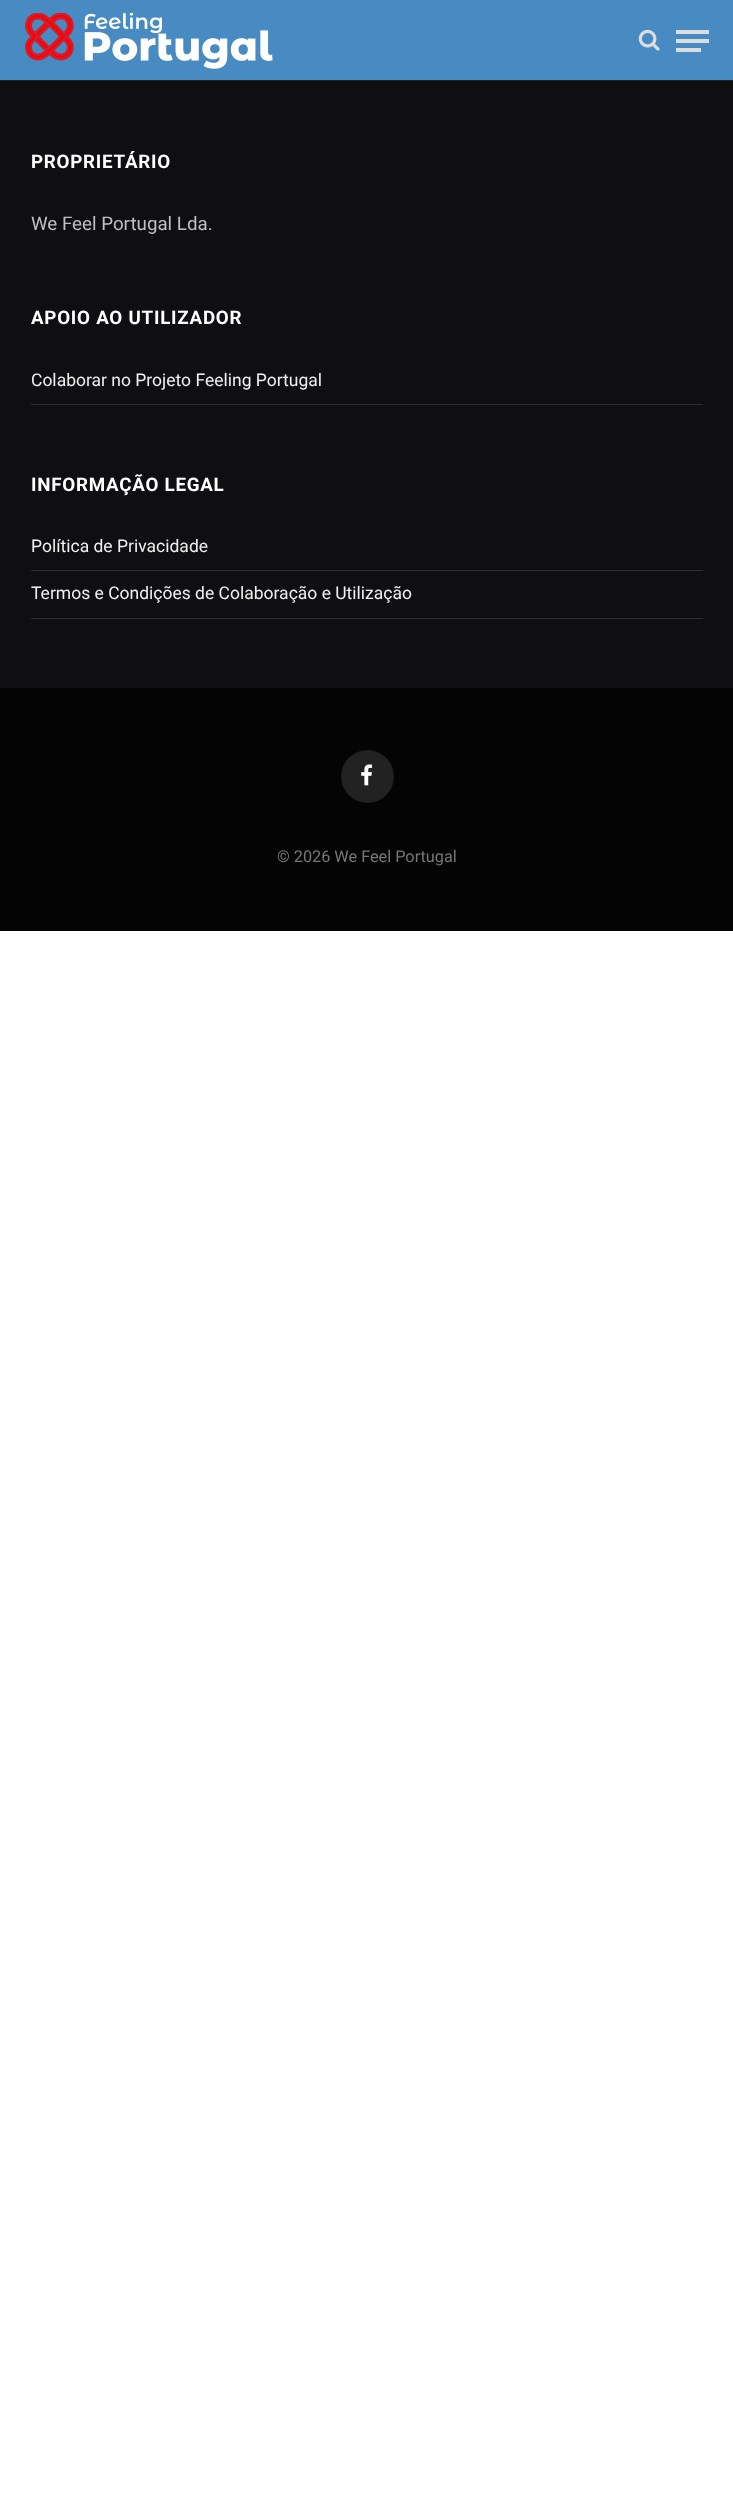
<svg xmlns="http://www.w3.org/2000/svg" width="733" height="2502">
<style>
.a{font:bold 18.75px Roboto;letter-spacing:0.75px;fill:#fff}
.b{font:18.75px Roboto;fill:#c0c0c0}
.c{font:17.5px Roboto;fill:#f0f0f0}
.d{font:16.25px Roboto;fill:#777}
</style>
<rect width="100%" height="100%" fill="#fff"/>
<path fill="#488bc2" d="M0 0h733v80H0z"/>
<path fill="#222" d="M0 80h733v1H0z"/>
<image href="1.png" x="25" y="13" width="248" height="56"/>
<image href="2.png" x="638" y="29" width="22" height="22"/>
<path fill="#ddd" d="M676 48h25v4H676z"/>
<path fill="#ddd" d="M676 30h33v4H676z"/>
<path fill="#ddd" d="M676 39h33v4H676z"/>
<path fill="#0f0f11" d="M0 81h733v607H0z"/>
<path fill="#2e2e30" d="M31 404h672v1H31z"/>
<path fill="#2e2e30" d="M31 570h672v1H31z"/>
<path fill="#2e2e30" d="M31 618h672v1H31z"/>
<path fill="#040404" d="M0 688h733v243H0z"/>
<circle fill="#222" cx="367.5" cy="776.5" r="26.5"/>
<circle fill="none" stroke="#00000017" cx="367.5" cy="776.5" r="26"/>
<image href="3.png" x="361" y="764" width="12" height="22"/>
<text class="a" x="31" y="168">PROPRIETÁRIO</text>
<text class="b" x="31" y="230">We Feel Portugal Lda.</text>
<text class="a" x="31" y="324">APOIO AO UTILIZADOR</text>
<text class="c" x="31" y="386">Colaborar no Projeto Feeling Portugal</text>
<text class="a" x="31" y="491">INFORMAÇÃO LEGAL</text>
<text class="c" x="31" y="552">Política de Privacidade</text>
<text class="c" x="31" y="599">Termos e Condições de Colaboração e Utilização</text>
<text class="d" x="277" y="862">© 2026 We Feel Portugal</text>
</svg>
